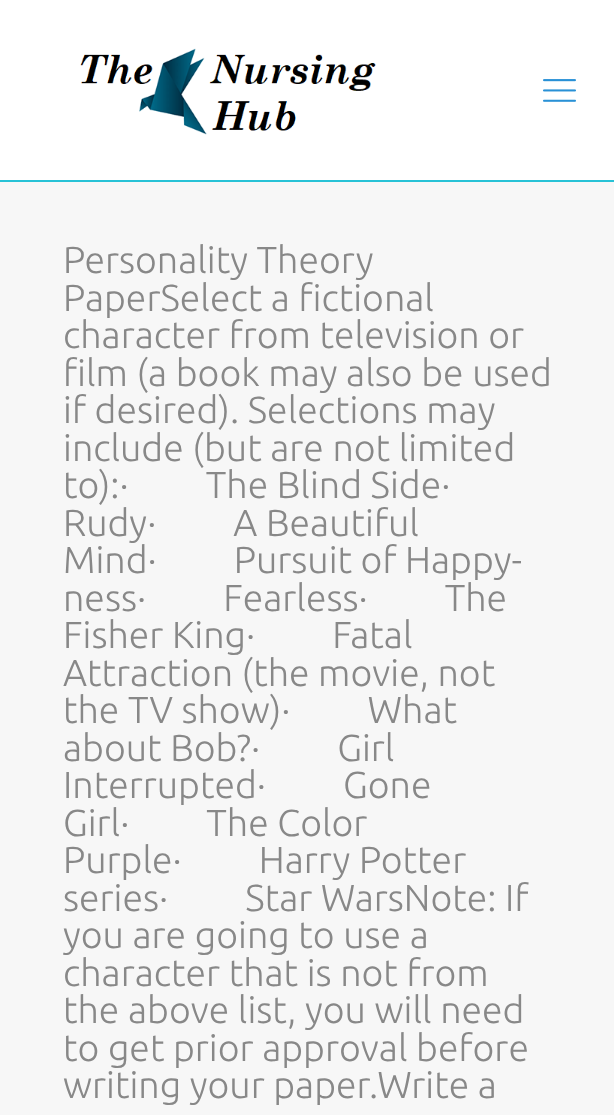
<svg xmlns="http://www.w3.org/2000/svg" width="614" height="1115">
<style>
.a{font:300 37.5px Ubuntu;fill:#888}
</style>
<rect width="100%" height="100%" fill="#fff"/>
<path fill="#27c2d6" d="M0 180h614v2H0z"/>
<image href="1.png" x="80" y="48" width="296" height="87"/>
<image href="2.png" x="543" y="79" width="33" height="23"/>
<path fill="#f7f7f7" d="M0 182h614v933H0z"/>
<text class="a" x="63" y="273">Personality Theory</text>
<text class="a" x="63" y="311">PaperSelect a fictional</text>
<text class="a" x="63" y="348">character from television or</text>
<text class="a" x="63" y="386">film (a book may also be used</text>
<text class="a" x="63" y="423">if desired). Selections may</text>
<text class="a" x="63" y="461">include (but are not limited</text>
<text class="a" xml:space="preserve" x="63" y="498">to):·         The Blind Side·</text>
<text class="a" xml:space="preserve" x="63" y="536">Rudy·         A Beautiful</text>
<text class="a" xml:space="preserve" x="63" y="573">Mind·         Pursuit of Happy-</text>
<text class="a" xml:space="preserve" x="63" y="611">ness·         Fearless·         The</text>
<text class="a" xml:space="preserve" x="63" y="648">Fisher King·         Fatal</text>
<text class="a" x="63" y="686">Attraction (the movie, not</text>
<text class="a" xml:space="preserve" x="63" y="723">the TV show)·         What</text>
<text class="a" xml:space="preserve" x="63" y="761">about Bob?·         Girl</text>
<text class="a" xml:space="preserve" x="63" y="798">Interrupted·         Gone</text>
<text class="a" xml:space="preserve" x="63" y="836">Girl·         The Color</text>
<text class="a" xml:space="preserve" x="63" y="873">Purple·         Harry Potter</text>
<text class="a" xml:space="preserve" x="63" y="911">series·         Star WarsNote: If</text>
<text class="a" x="63" y="948">you are going to use a</text>
<text class="a" x="63" y="986">character that is not from</text>
<text class="a" x="63" y="1023">the above list, you will need</text>
<text class="a" x="63" y="1061">to get prior approval before</text>
<text class="a" x="63" y="1098">writing your paper.Write a</text>
</svg>
